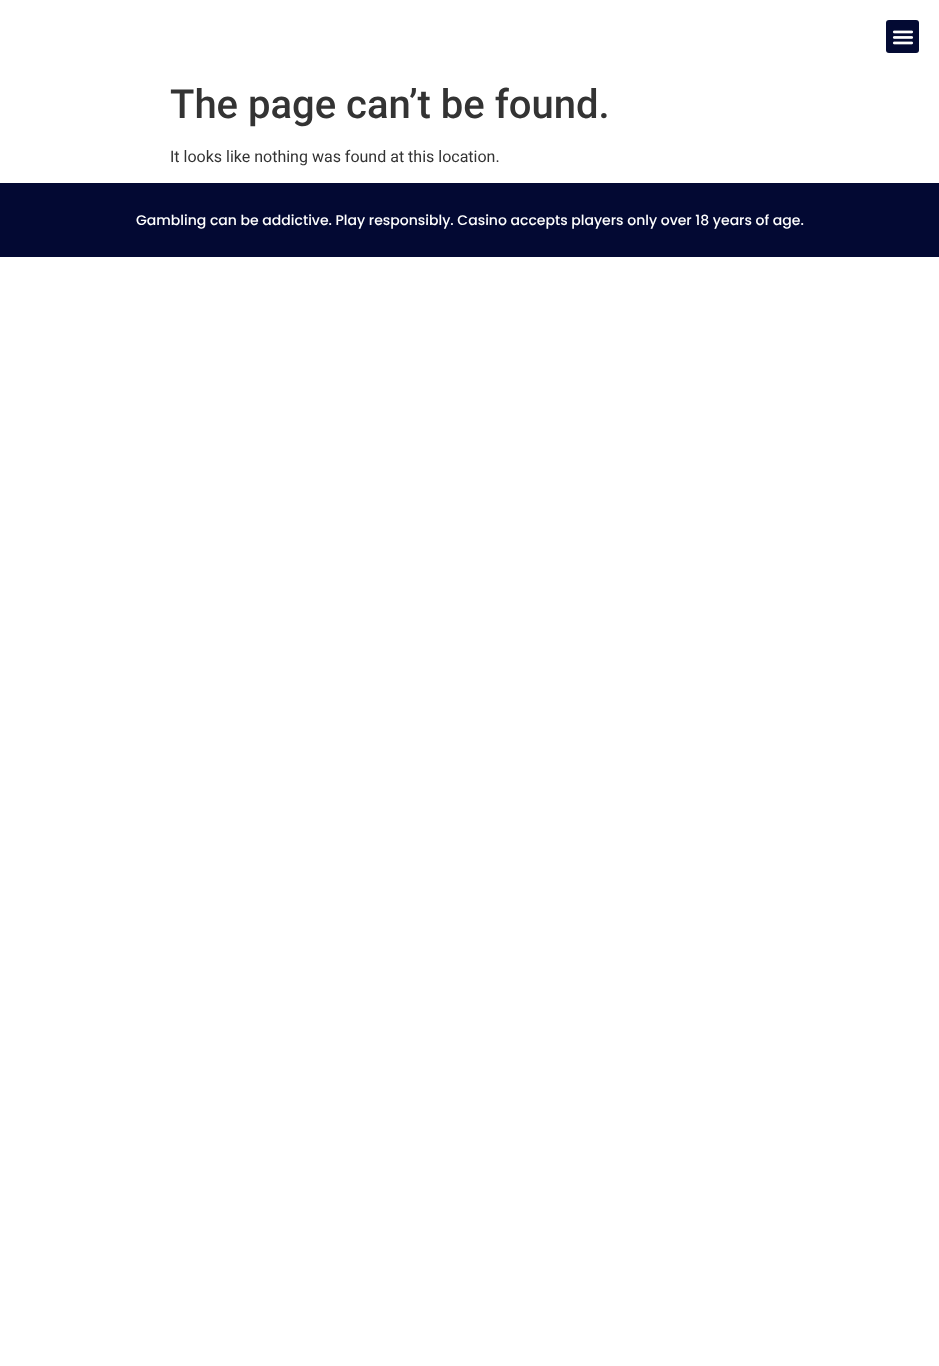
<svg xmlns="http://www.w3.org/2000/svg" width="939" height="1366">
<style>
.a{font:500 40px Roboto;fill:#333}
.b{font:16px Roboto;fill:#333}
.c{font:500 14px Poppins;fill:#fff}
</style>
<rect width="100%" height="100%" fill="#fff"/>
<rect fill="#030a33" x="886" y="20" width="33" height="33" rx="3"/>
<image href="1.png" x="892" y="30" width="22" height="15"/>
<path fill="#030933" d="M0 183h939v74H0z"/>
<text class="a" x="170" y="118">The page can’t be found.</text>
<text class="b" x="170" y="162">It looks like nothing was found at this location.</text>
<text class="c" x="136" y="225">Gambling can be addictive. Play responsibly. Casino accepts players only over 18 years of age.</text>
</svg>
